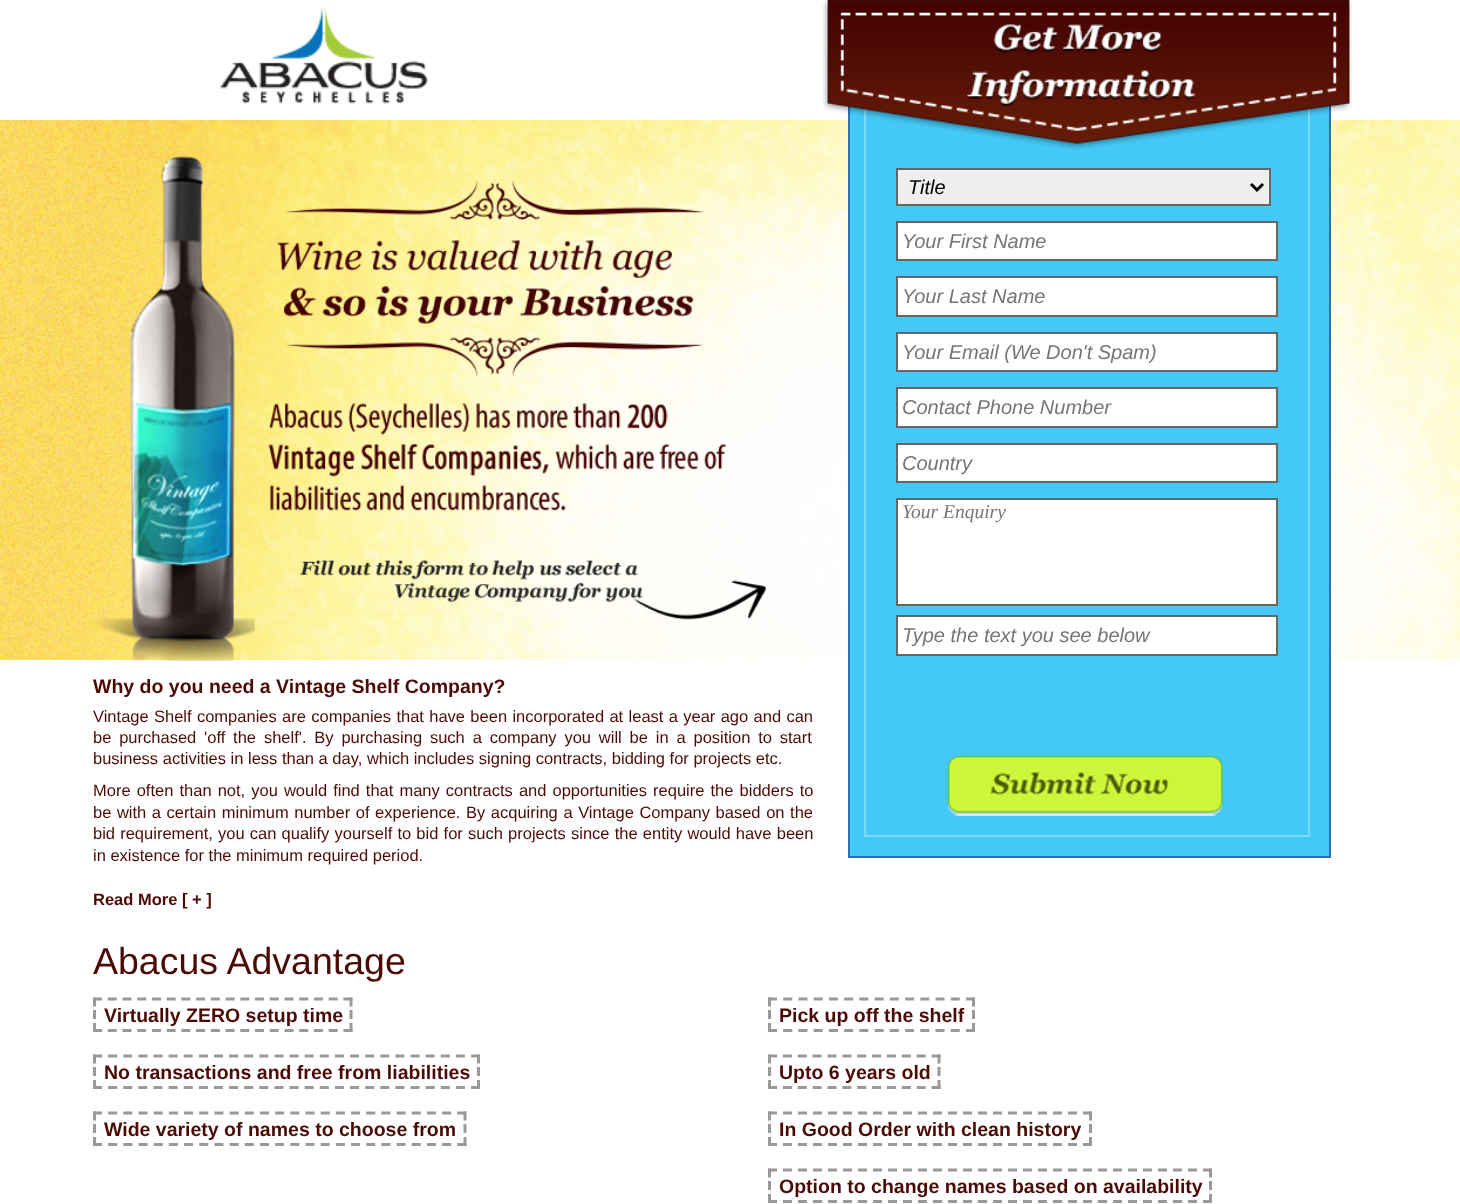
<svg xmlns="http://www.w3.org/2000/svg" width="1460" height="1204">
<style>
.a{font:italic 20px Liberation Sans;fill:#000}
.b{font:italic 20px Liberation Sans;fill:#757575}
.c{font:italic 19.5px Liberation Serif;fill:#757575}
.d{font:bold 19.5px Liberation Sans;fill:#4c0a05}
.e{font:16.5px Liberation Sans;fill:#4c0a05}
.f{font:bold 16.5px Liberation Sans;fill:#4c0a05}
.g{font:37.5px Liberation Sans;fill:#4c0a05}
</style>
<defs>
<clipPath id="clip1"><path d="M902 341h375v22H902z"/></clipPath>
</defs>
<rect width="100%" height="100%" fill="#fff"/>
<image href="1.png" x="220" y="7" width="208" height="97"/>
<image href="2.png" x="0" y="120" width="1460" height="540"/>
<path fill="#44c9f6" d="M850 105h479v751H850z"/>
<path fill="none" stroke="#2b6fb6" stroke-width="2" d="M849 61h481v796H849z"/>
<path fill="none" stroke="#7bdbfd" stroke-width="2" d="M865 78h444v758H865z"/>
<image href="3.png" x="822" y="0" width="530" height="150"/>
<image href="4.png" x="95" y="155" width="671" height="507"/>
<path fill="#efefef" stroke="#666" stroke-width="2" d="M897 169h373v36H897z"/>
<path fill="none" stroke="#000" stroke-width="3" d="M1251 184l6 6l6-6"/>
<path fill="#fff" stroke="#666" stroke-width="2" d="M897 222h380v38H897z"/>
<path fill="#fff" stroke="#666" stroke-width="2" d="M897 277h380v39H897z"/>
<path fill="#fff" stroke="#666" stroke-width="2" d="M897 333h380v38H897z"/>
<path fill="#fff" stroke="#666" stroke-width="2" d="M897 388h380v39H897z"/>
<path fill="#fff" stroke="#666" stroke-width="2" d="M897 444h380v38H897z"/>
<path fill="#fff" stroke="#666" stroke-width="2" d="M897 499h380v106H897z"/>
<path fill="#fff" stroke="#666" stroke-width="2" d="M897 616h380v39H897z"/>
<image href="5.png" x="948" y="756" width="275" height="60"/>
<path fill="none" stroke="#999" stroke-width="3" stroke-dasharray="9 5.73" d="M93 999h259.5"/>
<path fill="none" stroke="#999" stroke-width="3" d="M351 997.5v9m0 3.5v9m0 4v9"/>
<path fill="none" stroke="#999" stroke-width="3" stroke-dasharray="9 5.73" d="M93 1030.5h259.5"/>
<path fill="none" stroke="#999" stroke-width="3" d="M94.5 997.5v9m0 3.5v9m0 4v9"/>
<path fill="none" stroke="#999" stroke-width="3" stroke-dasharray="9 6.12" d="M93 1056h387"/>
<path fill="none" stroke="#999" stroke-width="3" d="M478.5 1054.5v9m0 3.5v9m0 4v9"/>
<path fill="none" stroke="#999" stroke-width="3" stroke-dasharray="9 6.12" d="M93 1087.5h387"/>
<path fill="none" stroke="#999" stroke-width="3" d="M94.5 1054.5v9m0 3.5v9m0 4v9"/>
<path fill="none" stroke="#999" stroke-width="3" stroke-dasharray="9 6.18" d="M93 1113h373.5"/>
<path fill="none" stroke="#999" stroke-width="3" d="M465 1111.5v9m0 3.5v9m0 4v9"/>
<path fill="none" stroke="#999" stroke-width="3" stroke-dasharray="9 6.18" d="M93 1144.5h373.5"/>
<path fill="none" stroke="#999" stroke-width="3" d="M94.5 1111.5v9m0 3.5v9m0 4v9"/>
<path fill="none" stroke="#999" stroke-width="3" stroke-dasharray="9 6.23" d="M768 999h207"/>
<path fill="none" stroke="#999" stroke-width="3" d="M973.5 997.5v9m0 3.5v9m0 4v9"/>
<path fill="none" stroke="#999" stroke-width="3" stroke-dasharray="9 6.23" d="M768 1030.5h207"/>
<path fill="none" stroke="#999" stroke-width="3" d="M769.5 997.5v9m0 3.5v9m0 4v9"/>
<path fill="none" stroke="#999" stroke-width="3" stroke-dasharray="9 5.87" d="M768 1056h172.5"/>
<path fill="none" stroke="#999" stroke-width="3" d="M939 1054.5v9m0 3.5v9m0 4v9"/>
<path fill="none" stroke="#999" stroke-width="3" stroke-dasharray="9 5.87" d="M768 1087.5h172.5"/>
<path fill="none" stroke="#999" stroke-width="3" d="M769.5 1054.5v9m0 3.5v9m0 4v9"/>
<path fill="none" stroke="#999" stroke-width="3" stroke-dasharray="9 6" d="M768 1113h324"/>
<path fill="none" stroke="#999" stroke-width="3" d="M1090.5 1111.5v9m0 3.5v9m0 4v9"/>
<path fill="none" stroke="#999" stroke-width="3" stroke-dasharray="9 6" d="M768 1144.5h324"/>
<path fill="none" stroke="#999" stroke-width="3" d="M769.5 1111.5v9m0 3.5v9m0 4v9"/>
<path fill="none" stroke="#999" stroke-width="3" stroke-dasharray="9 6" d="M768 1170h444"/>
<path fill="none" stroke="#999" stroke-width="3" d="M1210.5 1168.5v9m0 3.5v9m0 4v9"/>
<path fill="none" stroke="#999" stroke-width="3" stroke-dasharray="9 6" d="M768 1201.5h444"/>
<path fill="none" stroke="#999" stroke-width="3" d="M769.5 1168.5v9m0 3.5v9m0 4v9"/>
<text class="a" x="908" y="194">Title</text>
<text class="b" x="902" y="248">Your First Name</text>
<text class="b" x="902" y="303">Your Last Name</text>
<g clip-path="url(#clip1)">
<text class="b" x="902" y="359">Your Email (We Don't Spam)</text>
</g>
<text class="b" x="902" y="414">Contact Phone Number</text>
<text class="b" x="902" y="470">Country</text>
<text class="c" x="902" y="518">Your Enquiry</text>
<text class="b" x="902" y="642">Type the text you see below</text>
<text class="d" x="93" y="693">Why do you need a Vintage Shelf Company?</text>
<text class="e" x="93" y="722" word-spacing="0.75">Vintage Shelf companies are companies that have been incorporated at least a year ago and can</text>
<text class="e" x="93" y="743" word-spacing="3.25">be purchased 'off the shelf'. By purchasing such a company you will be in a position to start</text>
<text class="e" x="93" y="764">business activities in less than a day, which includes signing contracts, bidding for projects etc.</text>
<text class="e" x="93" y="796" word-spacing="1.5">More often than not, you would find that many contracts and opportunities require the bidders to</text>
<text class="e" x="93" y="818" word-spacing="1">be with a certain minimum number of experience. By acquiring a Vintage Company based on the</text>
<text class="e" x="93" y="839" word-spacing="0.6">bid requirement, you can qualify yourself to bid for such projects since the entity would have been</text>
<text class="e" x="93" y="861">in existence for the minimum required period.</text>
<text class="f" x="93" y="905">Read More [ + ]</text>
<text class="g" x="93" y="974">Abacus Advantage</text>
<text class="d" x="104" y="1022">Virtually ZERO setup time</text>
<text class="d" x="104" y="1079">No transactions and free from liabilities</text>
<text class="d" x="104" y="1136">Wide variety of names to choose from</text>
<text class="d" x="779" y="1022">Pick up off the shelf</text>
<text class="d" x="779" y="1079">Upto 6 years old</text>
<text class="d" x="779" y="1136">In Good Order with clean history</text>
<text class="d" x="779" y="1193">Option to change names based on availability</text>
</svg>
